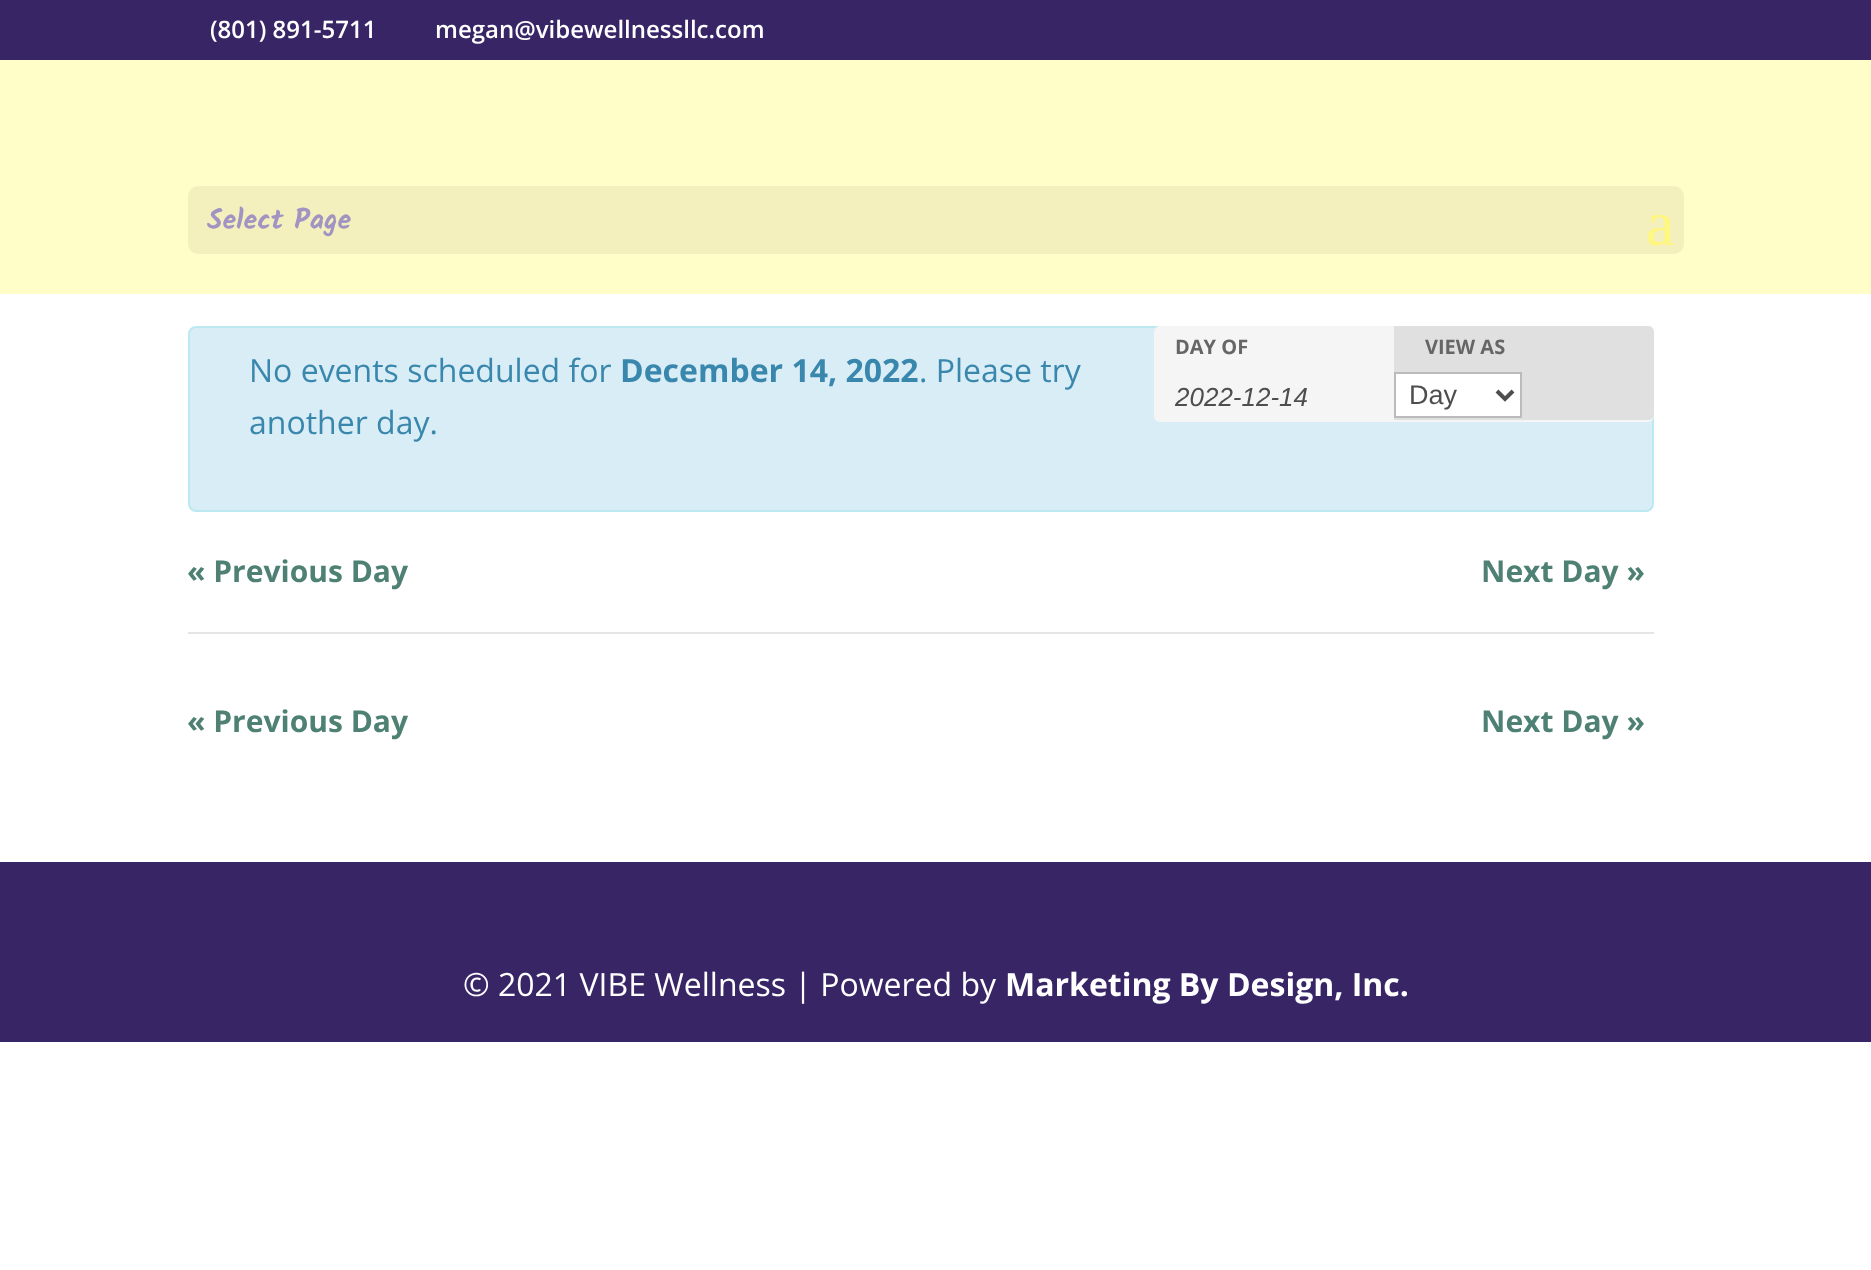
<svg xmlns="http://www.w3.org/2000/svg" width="1871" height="1270">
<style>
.a{font:600 24px Open Sans;fill:#fff}
.b{font:bold 28px Kalam;fill:#a194c3}
.c{font:64px Liberation Serif;fill:#fff77e}
.d{font:bold 20px Open Sans;fill:#666}
.e{font:italic 26px Liberation Sans;fill:#4e4e4e}
.f{font:27px Liberation Sans;fill:#4e4e4e}
.g{font:32px Open Sans;fill:#3a87ad}
.h{font:bold 32px Open Sans;fill:#3a87ad}
.i{font:bold 30px Open Sans;fill:#4e8173}
.j{font:32px Open Sans;fill:#fff}
.k{font:bold 32px Open Sans;fill:#fff}
</style>
<rect width="100%" height="100%" fill="#fff"/>
<path fill="#372566" d="M0 0h1871v60H0z"/>
<path fill="#fffdc8" d="M0 60h1871v234H0z"/>
<rect fill="#f3f0be" x="188" y="186" width="1496" height="68" rx="10"/>
<rect fill="#d9edf7" stroke="#bce8f1" stroke-width="2" x="189" y="327" width="1464" height="184" rx="7"/>
<rect fill="#f5f5f5" x="1154" y="326" width="500" height="96" rx="6"/>
<path fill="#e0e0e0" d="M1394 326h254c3.5 0 6 2.5 6 6v82c0 3.5-2.5 6-6 6h-254z"/>
<path fill="#fff" stroke="#bbb" stroke-width="2" d="M1395 373h126v44H1395z"/>
<path fill="none" stroke="#4e4e4e" stroke-width="4" d="M1497 391l8 8l8-8"/>
<path fill="#e5e5e5" d="M188 632h1466v2H188z"/>
<path fill="#372566" d="M0 862h1871v180H0z"/>
<text class="a" x="210" y="38">(801) 891-5711</text>
<text class="a" x="435" y="38">megan@vibewellnessllc.com</text>
<text class="b" x="207" y="229">Select Page</text>
<text class="c" x="1646" y="245">a</text>
<text class="d" x="1175" y="354">DAY OF</text>
<text class="e" x="1175" y="406">2022-12-14</text>
<text class="d" x="1425" y="354">VIEW AS</text>
<text class="f" x="1409" y="404">Day</text>
<text class="g" x="249" y="382">No events scheduled for</text>
<text class="h" x="620" y="382">December 14, 2022</text>
<text class="g" x="919" y="382">. Please try</text>
<text class="g" x="249" y="434">another day.</text>
<text class="i" x="187" y="582">« Previous Day</text>
<text class="i" x="1481" y="582">Next Day »</text>
<text class="i" x="187" y="732">« Previous Day</text>
<text class="i" x="1481" y="732">Next Day »</text>
<text class="j" x="463" y="996">© 2021 VIBE Wellness | Powered by</text>
<text class="k" x="1005" y="996">Marketing By Design, Inc.</text>
</svg>
